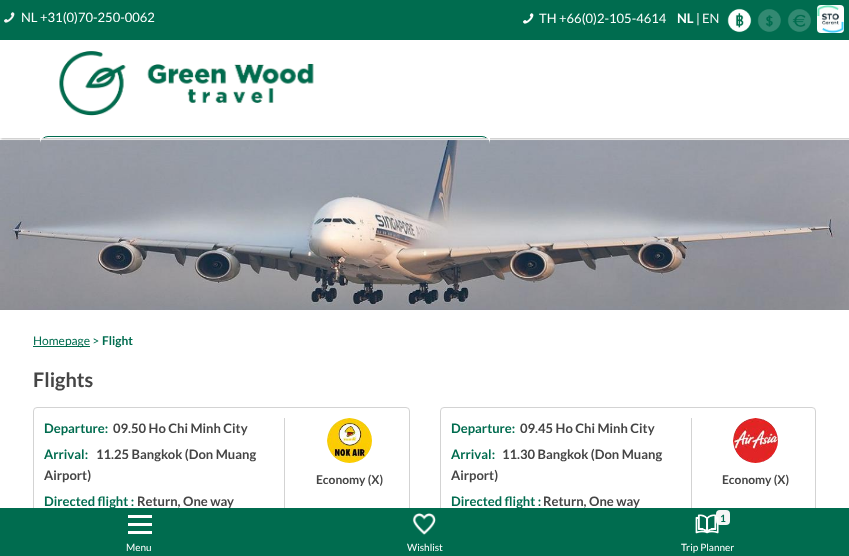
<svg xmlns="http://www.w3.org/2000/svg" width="849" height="556">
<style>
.a{font:13px Lato;fill:#fff}
.b{font:bold 13px Lato;fill:#fff}
.c{font:13px Lato;fill:#f5f5f5}
.d{font:12px Lato;fill:#006c4f}
.e{font:bold 12px Lato;fill:#006c4f}
.f{font:bold 20px Lato;fill:#454545}
.g{font:bold 13px Lato;fill:#006c4f}
.h{font:bold 13px Lato;fill:#454545}
.i{font:bold 12px Lato;fill:#454545}
.j{font:10px Lato;fill:#fff}
.k{font:bold 10px Lato;fill:#006c4f}
</style>
<defs>
<clipPath id="clip1"><path d="M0 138h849v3H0z"/></clipPath>
<clipPath id="clip2"><path d="M0 35h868v103H0z"/></clipPath>
</defs>
<rect width="100%" height="100%" fill="#fff"/>
<image href="8.png" x="0" y="140" width="849" height="170"/>
<g clip-path="url(#clip1)">
<path fill="#bbb" filter="blur(1px)" d="M1 36h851v103H1z"/>
</g>
<path fill="#006c4f" d="M0 0h849v40H0z"/>
<image href="1.png" x="4" y="12" width="11" height="11"/>
<image href="2.png" x="523" y="13" width="11" height="11"/>
<image href="3.png" x="727" y="8" width="25" height="25"/>
<image href="4.png" x="757" y="9" width="24" height="23"/>
<image href="5.png" x="787" y="9" width="24" height="23"/>
<image href="6.png" x="817" y="5" width="27" height="28"/>
<image href="7.png" x="59" y="51" width="255" height="65"/>
<path fill="#fff" d="M48 136h434c4.5 0 8 3.5 8 8v-6h-450v6c0-4.5 3.5-8 8-8z"/>
<g clip-path="url(#clip2)">
<rect fill="none" stroke="#006c4f" x="40.5" y="136.5" width="449" height="59" rx="7.5"/>
</g>
<path fill="#006c4f" d="M33 346h57v1H33z"/>
<rect fill="none" stroke="#d3d3d3" x="33.5" y="407.5" width="376" height="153" rx="3.5"/>
<path fill="#d3d3d3" d="M284 418h1v94H284z"/>
<image href="9.png" x="327" y="418" width="45" height="45"/>
<rect fill="none" stroke="#d3d3d3" x="440.5" y="407.5" width="375" height="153" rx="3.5"/>
<path fill="#d3d3d3" d="M691 418h1v94H691z"/>
<image href="10.png" x="733" y="418" width="45" height="45"/>
<text class="a" x="21" y="22">NL +31(0)70-250-0062</text>
<text class="a" x="539" y="23">TH +66(0)2-105-4614</text>
<text class="b" x="677" y="23">NL</text>
<text class="c" x="696" y="23">|</text>
<text class="c" x="702" y="23">EN</text>
<text class="d" x="33" y="345">Homepage &gt;</text>
<text class="e" x="102" y="345">Flight</text>
<text class="f" x="33" y="387">Flights</text>
<text class="g" x="44" y="433">Departure:</text>
<text class="h" x="113" y="433">09.50 Ho Chi Minh City</text>
<text class="g" x="44" y="459">Arrival:</text>
<text class="h" x="96" y="459">11.25 Bangkok (Don Muang</text>
<text class="h" x="44" y="480">Airport)</text>
<text class="g" x="44" y="506">Directed flight :</text>
<text class="h" x="137" y="506">Return, One way</text>
<text class="i" x="316" y="484">Economy (X)</text>
<text class="g" x="451" y="433">Departure:</text>
<text class="h" x="520" y="433">09.45 Ho Chi Minh City</text>
<text class="g" x="451" y="459">Arrival:</text>
<text class="h" x="502" y="459">11.30 Bangkok (Don Muang</text>
<text class="h" x="451" y="480">Airport)</text>
<text class="g" x="451" y="506">Directed flight :</text>
<text class="h" x="543" y="506">Return, One way</text>
<text class="i" x="722" y="484">Economy (X)</text>
<path fill="#006c4f" d="M0 508h849v48H0z"/>
<path fill="#fff" d="M128 523h24v3H128z"/>
<path fill="#fff" d="M128 515h24v3H128z"/>
<path fill="#fff" d="M128 531h24v3H128z"/>
<text class="j" x="126" y="551">Menu</text>
<image href="11.png" x="412" y="513" width="24" height="22"/>
<text class="j" x="407" y="551">Wishlist</text>
<rect fill="#f5f5f5" x="716" y="510" width="14" height="15" rx="4"/>
<image href="12.png" x="695" y="514" width="24" height="20"/>
<text class="k" x="720" y="522">1</text>
<text class="j" x="681" y="551">Trip Planner</text>
</svg>
